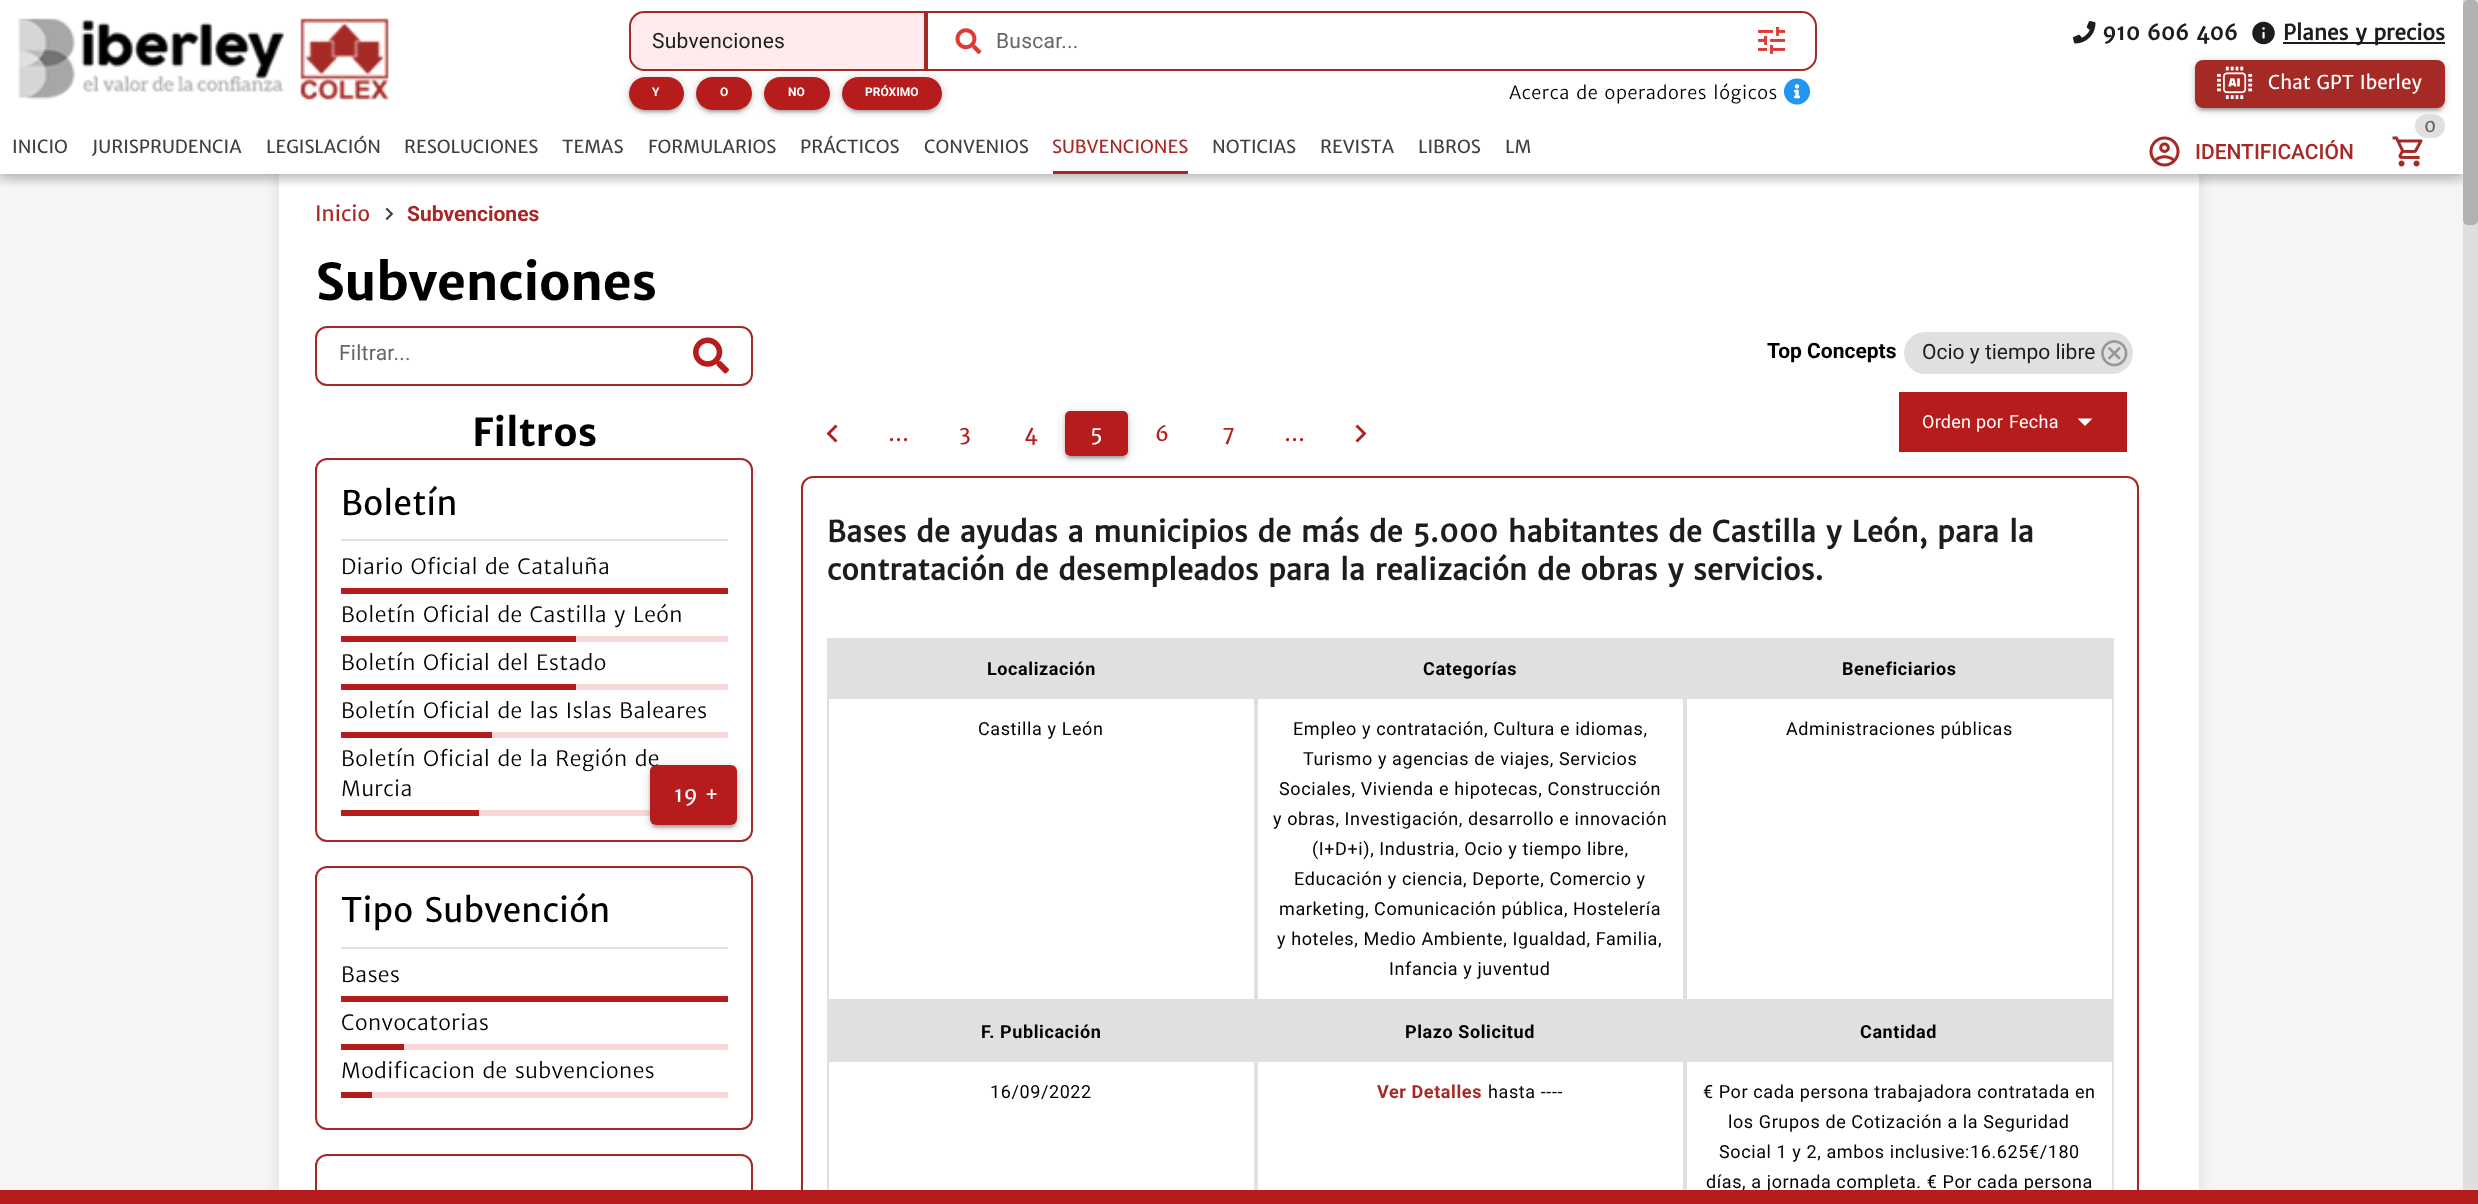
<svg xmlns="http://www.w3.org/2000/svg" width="2478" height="1204">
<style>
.a{font:21px Roboto;letter-spacing:0.25px;fill:#1d1d1d}
.b{font:21px Roboto;letter-spacing:0.25px;fill:#666}
.c{font:bold 12px Roboto;fill:#fff}
.d{font:18px 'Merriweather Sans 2';letter-spacing:0.6px;fill:#000}
.e{font:bold 21px 'Merriweather Sans 2';fill:#1d1d1d}
.f{font:19px Merriweather Sans;fill:#fff}
.g{font:18px Merriweather Sans;fill:#3f3f3f}
.h{font:18px Merriweather Sans;fill:#a52925}
.i{font:18px Merriweather Sans;fill:#666}
.j{font:500 21px Roboto;fill:#a52925}
.k{font:21px Merriweather Sans;fill:#a52925}
.l{font:bold 21px Roboto;fill:#a52925}
.m{font:bold 50.5px Merriweather Sans;letter-spacing:-0.75px;fill:#000}
.n{font:bold 38.5px Merriweather Sans;fill:#000}
.o{font:33.5px Merriweather Sans;letter-spacing:0.25px;fill:#000}
.p{font:21px 'Merriweather Sans 2';letter-spacing:0.4px;fill:#000}
.q{font:21px Merriweather Sans;fill:#fff}
.r{font:bold 21px Roboto;fill:#000}
.s{font:21px Roboto;fill:#1d1d1d}
.t{font:21px Merriweather Sans;fill:#b71c1c}
.u{font:18px Roboto;letter-spacing:0.25px;fill:#fff}
.v{font:bold 28.8px 'Merriweather Sans 2';letter-spacing:0.35px;fill:#1d1d1d}
.w{font:bold 18px Roboto;letter-spacing:0.6px;fill:#000}
.x{font:18px Roboto;letter-spacing:0.6px;fill:#000}
.y{font:bold 18px Roboto;letter-spacing:0.6px;fill:#a52925}
</style>
<defs>
<clipPath id="clip1"><path d="M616 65h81v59h-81zm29.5 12h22c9 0 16.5 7.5 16.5 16.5c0 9-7.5 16.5-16.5 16.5h-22c-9 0-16.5-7.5-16.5-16.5c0-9 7.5-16.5 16.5-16.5z" clip-rule="evenodd"/></clipPath>
<clipPath id="clip2"><path d="M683 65h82v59h-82zm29.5 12h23c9 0 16.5 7.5 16.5 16.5c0 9-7.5 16.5-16.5 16.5h-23c-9 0-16.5-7.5-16.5-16.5c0-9 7.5-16.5 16.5-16.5z" clip-rule="evenodd"/></clipPath>
<clipPath id="clip3"><path d="M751 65h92v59h-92zm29.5 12h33c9 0 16.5 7.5 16.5 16.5c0 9-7.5 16.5-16.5 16.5h-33c-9 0-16.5-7.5-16.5-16.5c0-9 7.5-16.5 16.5-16.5z" clip-rule="evenodd"/></clipPath>
<clipPath id="clip4"><path d="M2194 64h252v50h-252zm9-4h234c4.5 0 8 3.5 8 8v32c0 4.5-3.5 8-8 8h-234c-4.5 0-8-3.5-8-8v-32c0-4.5 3.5-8 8-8z" clip-rule="evenodd"/></clipPath>
<clipPath id="clip5"><path d="M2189 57h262v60h-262zm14 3h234c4.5 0 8 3.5 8 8v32c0 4.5-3.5 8-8 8h-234c-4.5 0-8-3.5-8-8v-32c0-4.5 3.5-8 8-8z" clip-rule="evenodd"/></clipPath>
<clipPath id="clip6"><path d="M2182 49h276v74h-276zm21 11h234c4.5 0 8 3.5 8 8v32c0 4.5-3.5 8-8 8h-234c-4.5 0-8-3.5-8-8v-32c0-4.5 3.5-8 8-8z" clip-rule="evenodd"/></clipPath>
<clipPath id="clip7"><path d="M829 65h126v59h-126zm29.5 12h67c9 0 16.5 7.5 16.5 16.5c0 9-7.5 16.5-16.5 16.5h-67c-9 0-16.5-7.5-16.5-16.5c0-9 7.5-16.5 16.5-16.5z" clip-rule="evenodd"/></clipPath>
<clipPath id="clip8"><path d="M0 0h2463v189H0z"/></clipPath>
<clipPath id="clip9"><path d="M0 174h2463v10H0z"/></clipPath>
<clipPath id="clip10"><path d="M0 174h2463v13H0z"/></clipPath>
<clipPath id="clip11"><path d="M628 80h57v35h-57zm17.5-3h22c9 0 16.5 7.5 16.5 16.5c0 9-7.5 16.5-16.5 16.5h-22c-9 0-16.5-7.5-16.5-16.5c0-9 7.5-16.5 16.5-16.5z" clip-rule="evenodd"/></clipPath>
<clipPath id="clip12"><path d="M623 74h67v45h-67zm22.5 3h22c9 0 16.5 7.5 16.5 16.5c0 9-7.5 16.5-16.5 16.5h-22c-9 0-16.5-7.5-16.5-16.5c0-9 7.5-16.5 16.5-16.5z" clip-rule="evenodd"/></clipPath>
<clipPath id="clip13"><path d="M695 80h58v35h-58zm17.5-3h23c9 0 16.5 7.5 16.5 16.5c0 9-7.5 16.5-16.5 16.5h-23c-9 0-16.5-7.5-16.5-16.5c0-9 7.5-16.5 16.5-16.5z" clip-rule="evenodd"/></clipPath>
<clipPath id="clip14"><path d="M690 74h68v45h-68zm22.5 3h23c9 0 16.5 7.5 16.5 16.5c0 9-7.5 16.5-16.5 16.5h-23c-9 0-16.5-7.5-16.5-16.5c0-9 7.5-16.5 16.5-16.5z" clip-rule="evenodd"/></clipPath>
<clipPath id="clip15"><path d="M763 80h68v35h-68zm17.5-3h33c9 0 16.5 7.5 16.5 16.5c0 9-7.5 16.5-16.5 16.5h-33c-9 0-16.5-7.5-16.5-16.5c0-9 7.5-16.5 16.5-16.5z" clip-rule="evenodd"/></clipPath>
<clipPath id="clip16"><path d="M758 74h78v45h-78zm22.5 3h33c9 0 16.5 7.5 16.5 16.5c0 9-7.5 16.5-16.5 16.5h-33c-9 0-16.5-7.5-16.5-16.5c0-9 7.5-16.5 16.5-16.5z" clip-rule="evenodd"/></clipPath>
<clipPath id="clip17"><path d="M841 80h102v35h-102zm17.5-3h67c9 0 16.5 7.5 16.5 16.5c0 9-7.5 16.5-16.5 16.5h-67c-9 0-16.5-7.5-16.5-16.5c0-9 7.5-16.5 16.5-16.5z" clip-rule="evenodd"/></clipPath>
<clipPath id="clip18"><path d="M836 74h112v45h-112zm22.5 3h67c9 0 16.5 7.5 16.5 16.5c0 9-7.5 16.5-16.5 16.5h-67c-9 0-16.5-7.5-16.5-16.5c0-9 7.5-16.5 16.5-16.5z" clip-rule="evenodd"/></clipPath>
<clipPath id="clip19"><path d="M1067 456h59v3H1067z"/></clipPath>
<clipPath id="clip20"><path d="M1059 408h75v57h-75zm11 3h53c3 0 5 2 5 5v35c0 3-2 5-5 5h-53c-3 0-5-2-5-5v-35c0-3 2-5 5-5z" clip-rule="evenodd"/></clipPath>
<clipPath id="clip21"><path d="M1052 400h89v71h-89zm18 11h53c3 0 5 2 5 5v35c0 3-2 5-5 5h-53c-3 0-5-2-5-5v-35c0-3 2-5 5-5z" clip-rule="evenodd"/></clipPath>
<clipPath id="clip22"><path d="M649 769h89v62h-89zm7-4h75c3.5 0 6 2.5 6 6v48c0 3.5-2.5 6-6 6h-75c-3.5 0-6-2.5-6-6v-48c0-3.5 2.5-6 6-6z" clip-rule="evenodd"/></clipPath>
<clipPath id="clip23"><path d="M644 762h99v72h-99zm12 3h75c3.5 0 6 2.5 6 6v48c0 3.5-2.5 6-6 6h-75c-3.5 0-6-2.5-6-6v-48c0-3.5 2.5-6 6-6z" clip-rule="evenodd"/></clipPath>
<clipPath id="clip24"><path d="M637 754h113v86h-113zm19 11h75c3.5 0 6 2.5 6 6v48c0 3.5-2.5 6-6 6h-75c-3.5 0-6-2.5-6-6v-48c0-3.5 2.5-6 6-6z" clip-rule="evenodd"/></clipPath>
</defs>
<rect width="100%" height="100%" fill="#f5f5f5"/>
<path fill="#dedede" d="M2463 0h15v1190H2463z"/>
<path fill="#0000001a" filter="blur(7.5px)" d="M279 0h1920v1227H279z"/>
<path fill="#fff" d="M0 0h2463v120H0z"/>
<image href="1.png" x="18" y="18" width="371" height="82"/>
<path fill="#ffebee" stroke="#a52925" stroke-width="2" d="M644 12h281v58h-281c-7.5 0-14-6.5-14-14v-30c0-7.5 6.5-14 14-14z"/>
<path fill="none" stroke="#a52925" stroke-width="2" d="M927 12h875c7.5 0 14 6.5 14 14v30c0 7.5-6.5 14-14 14h-875z"/>
<image href="2.png" x="955" y="28" width="27" height="26"/>
<image href="3.png" x="1758" y="26" width="28" height="28"/>
<rect fill="#b71c1c" x="629" y="77" width="55" height="33" rx="16.5"/>
<g clip-path="url(#clip1)">
<rect fill="#00000033" filter="blur(4px)" x="629" y="78" width="55" height="33" rx="16.5"/>
</g>
<rect fill="#b71c1c" x="696" y="77" width="56" height="33" rx="16.5"/>
<g clip-path="url(#clip2)">
<rect fill="#00000033" filter="blur(4px)" x="696" y="78" width="56" height="33" rx="16.5"/>
</g>
<rect fill="#b71c1c" x="764" y="77" width="66" height="33" rx="16.5"/>
<g clip-path="url(#clip3)">
<rect fill="#00000033" filter="blur(4px)" x="764" y="78" width="66" height="33" rx="16.5"/>
</g>
<rect fill="#b71c1c" x="842" y="77" width="100" height="33" rx="16.5"/>
<image href="4.png" x="1783" y="78" width="28" height="27"/>
<image href="5.png" x="2073" y="21" width="23" height="23"/>
<image href="6.png" x="2252" y="21" width="23" height="24"/>
<path fill="#1d1d1d" d="M2283 42h162v2H2283z"/>
<rect fill="#a52925" x="2195" y="60" width="250" height="48" rx="8"/>
<g clip-path="url(#clip4)">
<rect fill="#0000001f" filter="blur(1px)" x="2198" y="68" width="244" height="42" rx="5"/>
</g>
<g clip-path="url(#clip5)">
<rect fill="#00000024" filter="blur(1.5px)" x="2195" y="63" width="250" height="48" rx="8"/>
</g>
<g clip-path="url(#clip6)">
<rect fill="#00000033" filter="blur(4px)" x="2195" y="62" width="250" height="48" rx="8"/>
</g>
<image href="7.png" x="2217" y="66" width="36" height="33"/>
<g clip-path="url(#clip7)">
<rect fill="#00000033" filter="blur(4px)" x="842" y="78" width="100" height="33" rx="16.5"/>
</g>
<path fill="#fff" d="M0 120h2463v54H0z"/>
<path fill="#a52925" d="M1053 171h135v3H1053z"/>
<image href="8.png" x="2392" y="136" width="31" height="31"/>
<rect fill="#e0e0e0" x="2415" y="114" width="30" height="24" rx="12"/>
<image href="9.png" x="2149" y="136" width="31" height="31"/>
<path fill="#fff" d="M279 174h1920v1016H279z"/>
<rect fill="#b2b2b2" x="2463" width="15" height="225" rx="5"/>
<g clip-path="url(#clip8)">
<g clip-path="url(#clip9)">
<path fill="#0000003d" filter="blur(7.5px)" d="M0 0h2463v174H0z"/>
</g>
</g>
<g clip-path="url(#clip8)">
<g clip-path="url(#clip10)">
<path fill="#00000033" filter="blur(7.5px)" d="M-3 -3h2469v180H-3z"/>
</g>
</g>
<g clip-path="url(#clip11)">
<rect fill="#0000001f" filter="blur(1px)" x="632" y="84" width="49" height="27" rx="13.5"/>
</g>
<g clip-path="url(#clip12)">
<rect fill="#00000024" filter="blur(1.5px)" x="629" y="80" width="55" height="33" rx="16.5"/>
</g>
<g clip-path="url(#clip13)">
<rect fill="#0000001f" filter="blur(1px)" x="699" y="84" width="50" height="27" rx="13.5"/>
</g>
<g clip-path="url(#clip14)">
<rect fill="#00000024" filter="blur(1.5px)" x="696" y="80" width="56" height="33" rx="16.5"/>
</g>
<g clip-path="url(#clip15)">
<rect fill="#0000001f" filter="blur(1px)" x="767" y="84" width="60" height="27" rx="13.5"/>
</g>
<g clip-path="url(#clip16)">
<rect fill="#00000024" filter="blur(1.5px)" x="764" y="80" width="66" height="33" rx="16.5"/>
</g>
<g clip-path="url(#clip17)">
<rect fill="#0000001f" filter="blur(1px)" x="845" y="84" width="94" height="27" rx="13.5"/>
</g>
<g clip-path="url(#clip18)">
<rect fill="#00000024" filter="blur(1.5px)" x="842" y="80" width="100" height="33" rx="16.5"/>
</g>
<image href="10.png" x="385" y="207" width="9" height="13"/>
<rect fill="none" stroke="#a52925" stroke-width="2" x="316" y="327" width="436" height="58" rx="11"/>
<image href="11.png" x="693" y="337" width="36" height="37"/>
<rect fill="none" stroke="#a52925" stroke-width="2" x="316" y="459" width="436" height="382" rx="11"/>
<path fill="#e0e0e0" d="M341 539h387v2H341z"/>
<path fill="#b71c1c" d="M341 588h387v6H341z"/>
<path fill="#b71c1c" d="M341 636h235v6H341z"/>
<path fill="#f9d7d7" d="M576 636h152v6H576z"/>
<path fill="#b71c1c" d="M341 684h235v6H341z"/>
<path fill="#f9d7d7" d="M576 684h152v6H576z"/>
<path fill="#b71c1c" d="M341 732h151v6H341z"/>
<path fill="#f9d7d7" d="M492 732h236v6H492z"/>
<path fill="#b71c1c" d="M341 810h138v6H341z"/>
<path fill="#f9d7d7" d="M479 810h171v6H479z"/>
<rect fill="none" stroke="#a52925" stroke-width="2" x="316" y="867" width="436" height="262" rx="11"/>
<path fill="#e0e0e0" d="M341 947h387v2H341z"/>
<path fill="#b71c1c" d="M341 996h387v6H341z"/>
<path fill="#b71c1c" d="M341 1044h63v6H341z"/>
<path fill="#f9d7d7" d="M404 1044h324v6H404z"/>
<path fill="#b71c1c" d="M341 1092h31v6H341z"/>
<path fill="#f9d7d7" d="M372 1092h356v6H372z"/>
<rect fill="none" stroke="#a52925" stroke-width="2" x="316" y="1155" width="436" height="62" rx="11"/>
<rect fill="#e0e0e0" x="1904" y="332" width="229" height="42" rx="21"/>
<image href="12.png" x="2101" y="340" width="27" height="27"/>
<path fill="#b71c1c" d="M837.5 440.5l-7-7l7-7l-2-2l-9 9l9 9z"/>
<rect fill="#b71c1c" x="1065" y="411" width="63" height="45" rx="5"/>
<g clip-path="url(#clip19)">
<rect fill="#0000001f" filter="blur(1px)" x="1068" y="419" width="57" height="39" rx="1.5"/>
</g>
<g clip-path="url(#clip20)">
<rect fill="#00000024" filter="blur(1.5px)" x="1065" y="414" width="63" height="45" rx="5"/>
</g>
<g clip-path="url(#clip21)">
<rect fill="#00000033" filter="blur(4px)" x="1065" y="413" width="63" height="45" rx="5"/>
</g>
<path fill="#b71c1c" d="M1355.5 440.5l7-7l-7-7l2-2l9 9l-9 9z"/>
<path fill="#b71c1c" d="M1899 392h228v60H1899z"/>
<path fill="#fff" d="M2085 426l-7.5-7.5h15z"/>
<rect fill="none" stroke="#a52925" stroke-width="2" x="802" y="477" width="1336" height="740" rx="11"/>
<path fill="none" stroke="#e0e0e0" stroke-width="2" d="M828 639h427v361H828z"/>
<path fill="#e0e0e0" d="M829 640h425v59H829z"/>
<path fill="none" stroke="#e0e0e0" stroke-width="2" d="M1257 639h427v361H1257z"/>
<path fill="#e0e0e0" d="M1258 640h425v59H1258z"/>
<path fill="none" stroke="#e0e0e0" stroke-width="2" d="M1686 639h427v361H1686z"/>
<path fill="#e0e0e0" d="M1687 640h425v59H1687z"/>
<path fill="none" stroke="#e0e0e0" stroke-width="2" d="M828 1002h427v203H828z"/>
<path fill="#e0e0e0" d="M829 1003h425v59H829z"/>
<path fill="none" stroke="#e0e0e0" stroke-width="2" d="M1257 1002h427v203H1257z"/>
<path fill="#e0e0e0" d="M1258 1003h425v59H1258z"/>
<path fill="none" stroke="#e0e0e0" stroke-width="2" d="M1686 1002h427v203H1686z"/>
<path fill="#e0e0e0" d="M1687 1003h425v59H1687z"/>
<text class="a" x="652" y="48">Subvenciones</text>
<text class="b" x="996" y="48">Buscar...</text>
<text class="c" x="652" y="96">Y</text>
<text class="c" x="720" y="96">O</text>
<text class="c" x="788" y="96">NO</text>
<text class="c" x="865" y="96">PRÓXIMO</text>
<text class="d" x="1509" y="99">Acerca de operadores lógicos</text>
<text class="e" x="2102" y="40">910 606 406</text>
<text class="e" x="2283" y="40">Planes y precios</text>
<text class="f" x="2268" y="89">Chat GPT Iberley</text>
<text class="g" x="12" y="153">INICIO</text>
<text class="g" x="92" y="153">JURISPRUDENCIA</text>
<text class="g" x="266" y="153">LEGISLACIÓN</text>
<text class="g" x="404" y="153">RESOLUCIONES</text>
<text class="g" x="562" y="153">TEMAS</text>
<text class="g" x="648" y="153">FORMULARIOS</text>
<text class="g" x="800" y="153">PRÁCTICOS</text>
<text class="g" x="924" y="153">CONVENIOS</text>
<text class="h" x="1052" y="153">SUBVENCIONES</text>
<text class="g" x="1212" y="153">NOTICIAS</text>
<text class="g" x="1320" y="153">REVISTA</text>
<text class="g" x="1418" y="153">LIBROS</text>
<text class="g" x="1505" y="153">LM</text>
<text class="i" x="2424" y="132">0</text>
<text class="j" x="2195" y="159">IDENTIFICACIÓN</text>
<text class="k" x="315" y="221">Inicio</text>
<text class="l" x="407" y="221">Subvenciones</text>
<text class="m" x="315" y="300">Subvenciones</text>
<text class="b" x="339" y="360">Filtrar...</text>
<text class="n" x="472" y="446">Filtros</text>
<text class="o" x="341" y="515">Boletín</text>
<text class="p" x="341" y="574">Diario Oficial de Cataluña</text>
<text class="p" x="341" y="622">Boletín Oficial de Castilla y León</text>
<text class="p" x="341" y="670">Boletín Oficial del Estado</text>
<text class="p" x="341" y="718">Boletín Oficial de las Islas Baleares</text>
<text class="p" x="341" y="766">Boletín Oficial de la Región de</text>
<text class="p" x="341" y="796">Murcia</text>
<rect fill="#b71c1c" x="650" y="765" width="87" height="60" rx="6"/>
<g clip-path="url(#clip22)">
<rect fill="#0000001f" filter="blur(1px)" x="653" y="773" width="81" height="54" rx="3"/>
</g>
<g clip-path="url(#clip23)">
<rect fill="#00000024" filter="blur(1.5px)" x="650" y="768" width="87" height="60" rx="6"/>
</g>
<g clip-path="url(#clip24)">
<rect fill="#00000033" filter="blur(4px)" x="650" y="767" width="87" height="60" rx="6"/>
</g>
<text class="q" x="674" y="802">19 +</text>
<text class="o" x="341" y="922">Tipo Subvención</text>
<text class="p" x="341" y="982">Bases</text>
<text class="p" x="341" y="1030">Convocatorias</text>
<text class="p" x="341" y="1078">Modificacion de subvenciones</text>
<text class="r" x="1767" y="358">Top Concepts</text>
<text class="s" x="1922" y="359">Ocio y tiempo libre</text>
<text class="t" x="888" y="441">…</text>
<text class="t" x="959" y="441">3</text>
<text class="t" x="1024" y="441">4</text>
<text class="q" x="1090" y="441">5</text>
<text class="t" x="1155" y="441">6</text>
<text class="t" x="1222" y="441">7</text>
<text class="t" x="1284" y="441">…</text>
<text class="u" x="1922" y="428">Orden por</text>
<text class="u" x="2009" y="428">Fecha</text>
<text class="v" x="827" y="542">Bases de ayudas a municipios de más de 5.000 habitantes de Castilla y León, para la</text>
<text class="v" x="827" y="580">contratación de desempleados para la realización de obras y servicios.</text>
<text class="w" x="987" y="675">Localización</text>
<text class="x" x="978" y="735">Castilla y León</text>
<text class="w" x="1423" y="675">Categorías</text>
<text class="x" x="1293" y="735">Empleo y contratación, Cultura e idiomas,</text>
<text class="x" x="1303" y="765">Turismo y agencias de viajes, Servicios</text>
<text class="x" x="1279" y="795">Sociales, Vivienda e hipotecas, Construcción</text>
<text class="x" x="1273" y="825">y obras, Investigación, desarrollo e innovación</text>
<text class="x" x="1312" y="855">(I+D+i), Industria, Ocio y tiempo libre,</text>
<text class="x" x="1294" y="885">Educación y ciencia, Deporte, Comercio y</text>
<text class="x" x="1279" y="915">marketing, Comunicación pública, Hostelería</text>
<text class="x" x="1277" y="945">y hoteles, Medio Ambiente, Igualdad, Familia,</text>
<text class="x" x="1389" y="975">Infancia y juventud</text>
<text class="w" x="1842" y="675">Beneficiarios</text>
<text class="x" x="1786" y="735">Administraciones públicas</text>
<text class="w" x="981" y="1038">F. Publicación</text>
<text class="x" x="990" y="1098">16/09/2022</text>
<text class="w" x="1405" y="1038">Plazo Solicitud</text>
<text class="y" x="1377" y="1098">Ver Detalles</text>
<text class="x" x="1488" y="1098">hasta ----</text>
<text class="w" x="1860" y="1038">Cantidad</text>
<text class="x" x="1703" y="1098">€ Por cada persona trabajadora contratada en</text>
<text class="x" x="1728" y="1128">los Grupos de Cotización a la Seguridad</text>
<text class="x" x="1719" y="1158">Social 1 y 2, ambos inclusive:16.625€/180</text>
<text class="x" x="1706" y="1188">días, a jornada completa. € Por cada persona</text>
<path fill="#b71c1c" d="M0 1190h2478v14H0z"/>
</svg>
